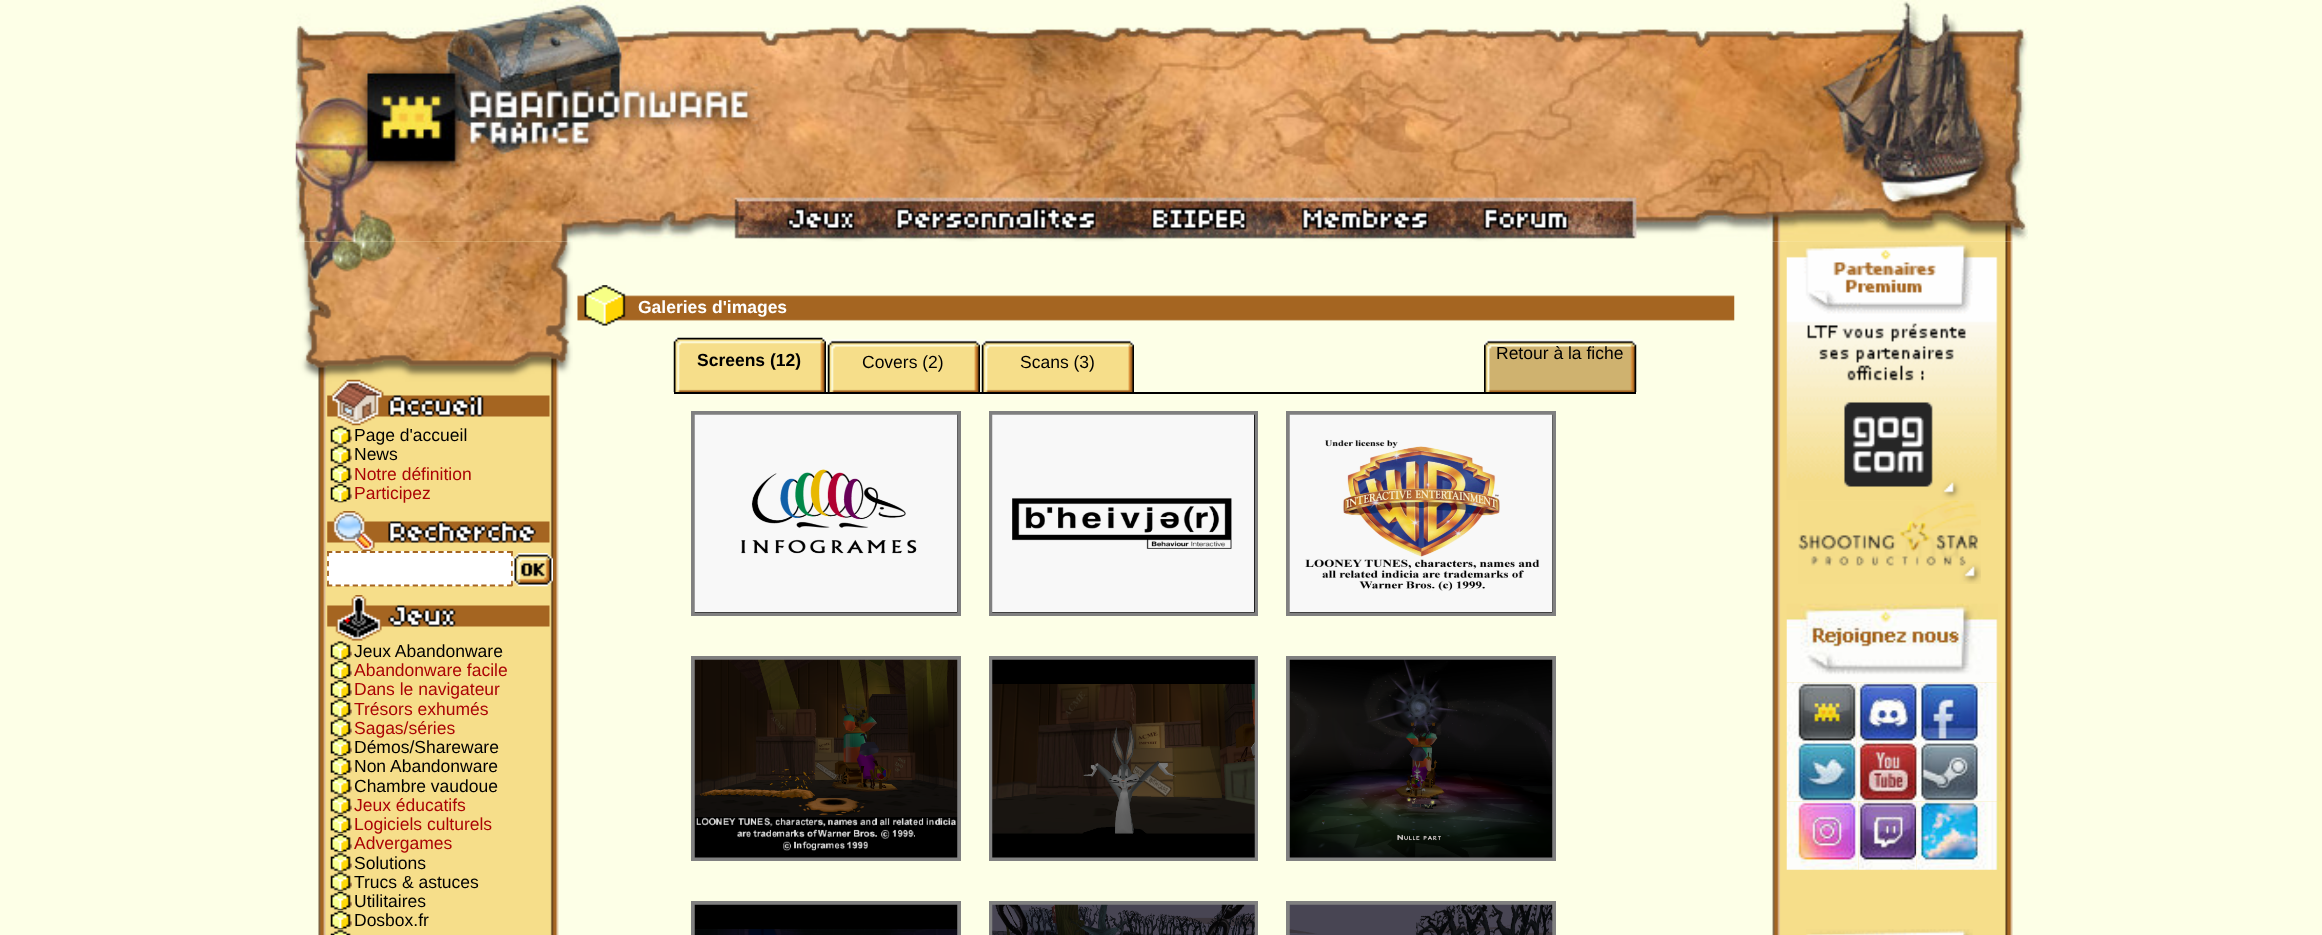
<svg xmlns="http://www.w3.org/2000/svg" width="2322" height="935">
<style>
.a{font:bold 17.5px Liberation Sans;fill:#fff}
.b{font:bold 17.5px Liberation Sans;fill:#000}
.c{font:17.5px Liberation Sans;fill:#000}
.d{font:17.5px Liberation Sans;fill:#ab0405}
</style>
<rect width="100%" height="100%" fill="#fdffe7"/>
<image href="16.png" x="1772" y="241" width="241" height="694"/>
<image href="17.png" x="1786" y="241" width="218" height="259"/>
<image href="30.png" x="318" y="241" width="241" height="694"/>
<image href="31.png" x="298" y="241" width="275" height="139"/>
<image href="1.png" x="295" y="0" width="1733" height="242"/>
<image href="2.png" x="577" y="285" width="1158" height="41"/>
<path fill="#000" d="M674 392h962v2H674z"/>
<image href="3.png" x="673" y="337" width="153" height="55"/>
<image href="4.png" x="827" y="339" width="153" height="53"/>
<image href="5.png" x="981" y="339" width="153" height="53"/>
<image href="6.png" x="1484" y="339" width="153" height="53"/>
<path fill="none" stroke="#808080" stroke-width="4" d="M693 413h266v201H693z"/>
<image href="7.png" x="694" y="414" width="264" height="199"/>
<path fill="none" stroke="#808080" stroke-width="4" d="M991 413h265v201H991z"/>
<image href="8.png" x="992" y="414" width="263" height="199"/>
<path fill="none" stroke="#808080" stroke-width="4" d="M1288 413h266v201H1288z"/>
<image href="9.png" x="1289" y="414" width="264" height="199"/>
<path fill="none" stroke="#808080" stroke-width="4" d="M693 658h266v201H693z"/>
<image href="10.png" x="694" y="659" width="264" height="199"/>
<path fill="none" stroke="#808080" stroke-width="4" d="M991 658h265v201H991z"/>
<image href="11.png" x="992" y="659" width="263" height="199"/>
<path fill="none" stroke="#808080" stroke-width="4" d="M1288 658h266v201H1288z"/>
<image href="12.png" x="1289" y="659" width="264" height="199"/>
<path fill="none" stroke="#808080" stroke-width="4" d="M693 903h266v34H693z"/>
<image href="13.png" x="694" y="904" width="264" height="31"/>
<path fill="none" stroke="#808080" stroke-width="4" d="M991 903h265v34H991z"/>
<image href="14.png" x="992" y="904" width="263" height="31"/>
<path fill="none" stroke="#808080" stroke-width="4" d="M1288 903h266v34H1288z"/>
<image href="15.png" x="1289" y="904" width="264" height="31"/>
<image href="18.png" x="1798" y="500" width="183" height="84"/>
<image href="19.png" x="1786" y="603" width="212" height="80"/>
<image href="20.png" x="1786" y="682" width="71" height="60"/>
<image href="21.png" x="1856" y="682" width="62" height="60"/>
<image href="22.png" x="1918" y="682" width="84" height="60"/>
<image href="23.png" x="1786" y="742" width="71" height="60"/>
<image href="24.png" x="1856" y="742" width="62" height="60"/>
<image href="25.png" x="1918" y="742" width="84" height="60"/>
<image href="26.png" x="1786" y="801" width="73" height="69"/>
<image href="27.png" x="1858" y="801" width="59" height="69"/>
<image href="28.png" x="1916" y="801" width="83" height="69"/>
<image href="29.png" x="1806" y="929" width="167" height="6"/>
<image href="32.png" x="327" y="379" width="223" height="47"/>
<image href="33.png" x="330" y="425" width="22" height="20"/>
<image href="34.png" x="330" y="445" width="22" height="19"/>
<image href="35.png" x="330" y="464" width="22" height="19"/>
<image href="36.png" x="330" y="483" width="22" height="20"/>
<image href="37.png" x="327" y="511" width="223" height="41"/>
<path fill="#fff" d="M327 551h186v35H327z"/>
<path fill="none" stroke="#a56521" stroke-width="1.8" stroke-dasharray="5.25 3.32" d="M327 552h186"/>
<path fill="none" stroke="#a56521" stroke-width="1.8" stroke-dasharray="5.25 4.67" d="M512 551v35"/>
<path fill="none" stroke="#a56521" stroke-width="1.8" stroke-dasharray="5.25 3.32" d="M327 585.5h186"/>
<path fill="none" stroke="#a56521" stroke-width="1.8" stroke-dasharray="5.25 4.67" d="M328 551v35"/>
<image href="38.png" x="512" y="553" width="41" height="34"/>
<image href="39.png" x="327" y="595" width="223" height="46"/>
<image href="34.png" x="330" y="641" width="22" height="19"/>
<image href="35.png" x="330" y="660" width="22" height="19"/>
<image href="36.png" x="330" y="679" width="22" height="20"/>
<image href="40.png" x="330" y="698" width="22" height="20"/>
<image href="34.png" x="330" y="718" width="22" height="19"/>
<image href="35.png" x="330" y="737" width="22" height="19"/>
<image href="36.png" x="330" y="756" width="22" height="20"/>
<image href="40.png" x="330" y="775" width="22" height="20"/>
<image href="34.png" x="330" y="795" width="22" height="19"/>
<image href="35.png" x="330" y="814" width="22" height="19"/>
<image href="36.png" x="330" y="833" width="22" height="20"/>
<image href="40.png" x="330" y="852" width="22" height="20"/>
<image href="34.png" x="330" y="872" width="22" height="19"/>
<image href="35.png" x="330" y="891" width="22" height="19"/>
<image href="36.png" x="330" y="910" width="22" height="20"/>
<image href="41.png" x="330" y="929" width="21" height="6"/>
<text class="a" x="638" y="313">Galeries d'images</text>
<text class="b" x="697" y="366">Screens (12)</text>
<text class="c" x="862" y="368">Covers (2)</text>
<text class="c" x="1020" y="368">Scans (3)</text>
<text class="c" x="1496" y="359">Retour à la fiche</text>
<text class="c" x="354" y="441">Page d'accueil</text>
<text class="c" x="354" y="460">News</text>
<text class="d" x="354" y="480">Notre définition</text>
<text class="d" x="354" y="499">Participez</text>
<text class="c" x="354" y="657">Jeux Abandonware</text>
<text class="d" x="354" y="676">Abandonware facile</text>
<text class="d" x="354" y="695">Dans le navigateur</text>
<text class="d" x="354" y="715">Trésors exhumés</text>
<text class="d" x="354" y="734">Sagas/séries</text>
<text class="c" x="354" y="753">Démos/Shareware</text>
<text class="c" x="354" y="772">Non Abandonware</text>
<text class="c" x="354" y="792">Chambre vaudoue</text>
<text class="d" x="354" y="811">Jeux éducatifs</text>
<text class="d" x="354" y="830">Logiciels culturels</text>
<text class="d" x="354" y="849">Advergames</text>
<text class="c" x="354" y="869">Solutions</text>
<text class="c" x="354" y="888">Trucs &amp; astuces</text>
<text class="c" x="354" y="907">Utilitaires</text>
<text class="c" x="354" y="926">Dosbox.fr</text>
</svg>
